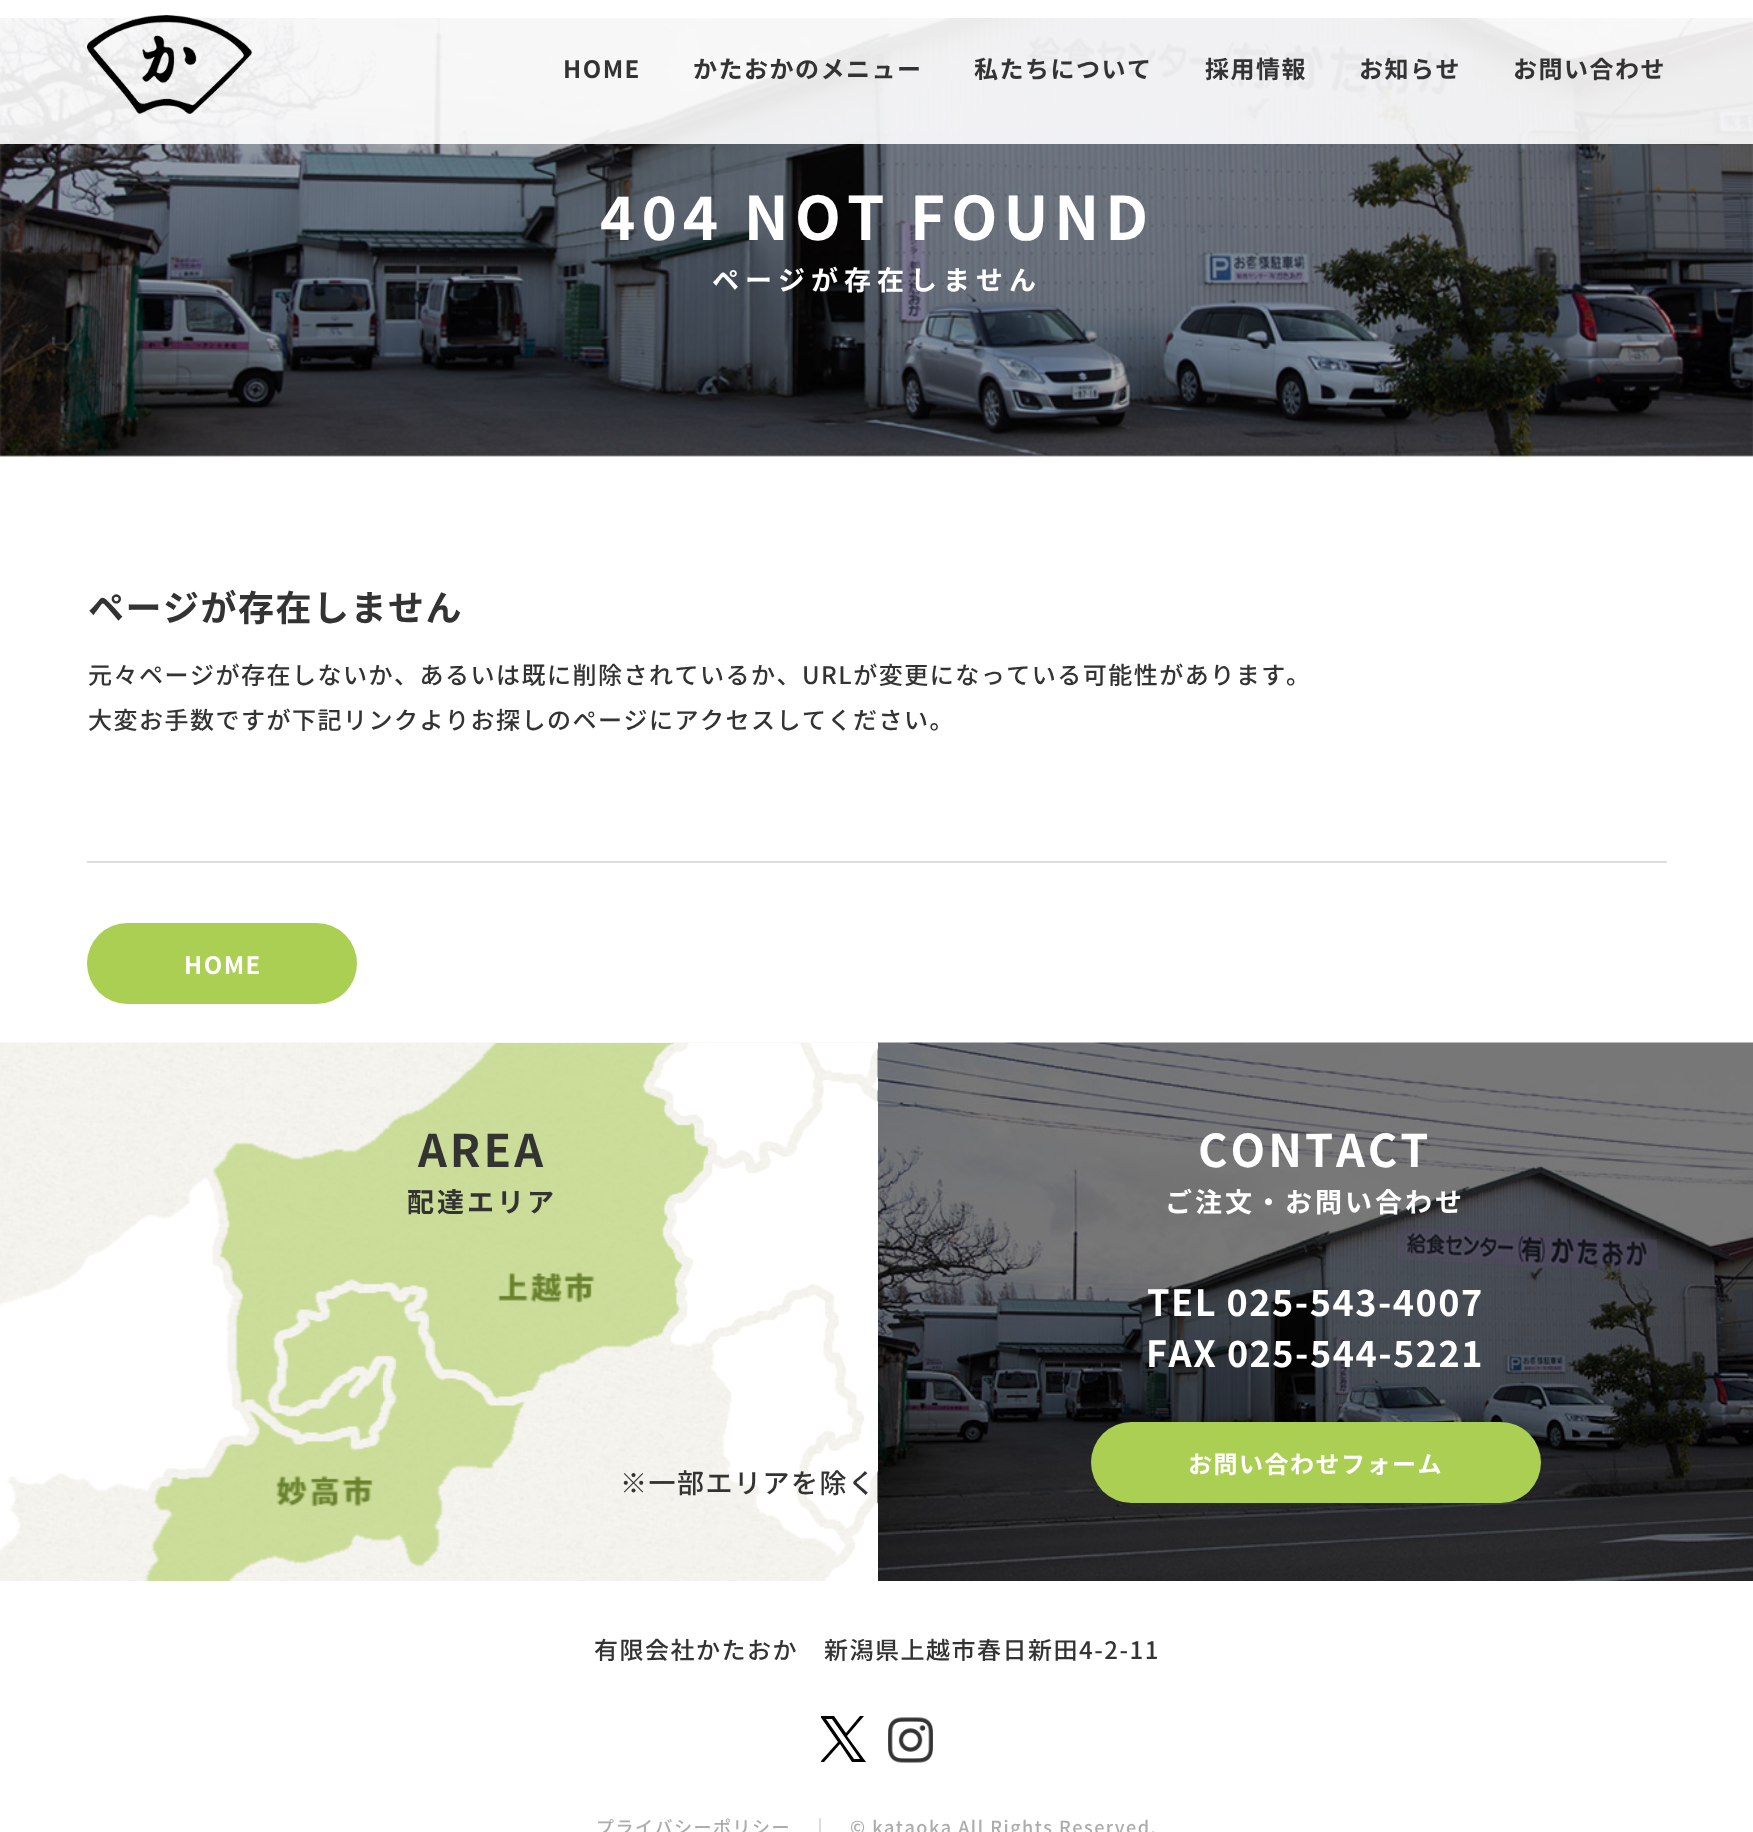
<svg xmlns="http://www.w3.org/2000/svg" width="1753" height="1832">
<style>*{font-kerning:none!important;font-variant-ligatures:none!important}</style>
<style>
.a{font:bold 24px Noto Sans JP;letter-spacing:1.5px;fill:#333}
.b{font:bold 60px Noto Sans JP;letter-spacing:6px;fill:#fff}
.c{font:bold 27px Noto Sans JP;letter-spacing:6px;fill:#fff}
.d{font:bold 36px Noto Sans JP;letter-spacing:1.5px;fill:#333}
.e{font:500 24px Noto Sans JP;letter-spacing:1.5px;fill:#333}
.f{font:bold 24px Noto Sans JP;letter-spacing:1.5px;fill:#fff}
.g{font:bold 45px Noto Sans JP;letter-spacing:3px;fill:#333}
.h{font:bold 27px Noto Sans JP;letter-spacing:3px;fill:#333}
.i{font:500 27px Noto Sans JP;letter-spacing:1.5px;fill:#333}
.j{font:bold 45px Noto Sans JP;letter-spacing:3px;fill:#fff}
.k{font:bold 27px Noto Sans JP;letter-spacing:3px;fill:#fff}
.l{font:bold 36px Noto Sans JP;letter-spacing:1.5px;fill:#fff}
.m{font:500 18px Noto Sans JP;letter-spacing:1.5px;fill:#acacac}
</style>
<defs>
<clipPath id="clip1"><path d="M821 1716h45v47H821z"/></clipPath>
</defs>
<rect width="100%" height="100%" fill="#fff"/>
<path fill="#b3b3b3" d="M0 455h1753v1H0z"/>
<image href="2.png" x="0" y="18" width="1753" height="439"/>
<path fill="#ffffffe6" d="M0 18h1753v126H0z"/>
<image href="1.png" x="87" y="15" width="165" height="99"/>
<path fill="#ddd" d="M87 861h1580v2H87z"/>
<rect fill="#aacf52" x="87" y="923" width="270" height="81" rx="40.5"/>
<image href="3.png" x="0" y="1042" width="878" height="539"/>
<image href="5.png" x="877" y="1042" width="876" height="539"/>
<image href="4.png" x="0" y="1043" width="878" height="538"/>
<rect fill="#aacf52" x="1091" y="1422" width="450" height="81" rx="40.5"/>
<g clip-path="url(#clip1)">
<path fill="#000" d="M847 1736l17-20h-4l-14 17l-12-17h-14l18 26l-18 20h4l16-18l12 18h14zm-5 6l-16-23h6l28 40h-6z"/>
</g>
<image href="6.png" x="888" y="1717" width="45" height="46"/>
<text class="a" x="563" y="78">HOME</text>
<text class="a" x="693" y="78">かたおかのメニュー</text>
<text class="a" x="974" y="78">私たちについて</text>
<text class="a" x="1205" y="78">採用情報</text>
<text class="a" x="1359" y="78">お知らせ</text>
<text class="a" x="1513" y="78">お問い合わせ</text>
<text class="b" x="600" y="240">404 NOT FOUND</text>
<text class="c" x="712" y="290">ページが存在しません</text>
<text class="d" x="88" y="621">ページが存在しません</text>
<text class="e" x="88" y="684">元々ページが存在しないか、あるいは既に削除されているか、URLが変更になっている可能性があります</text>
<text class="e" x="1286" y="684">。</text>
<text class="e" x="88" y="729">大変お手数ですが下記リンクよりお探しのページにアクセスしてください。</text>
<text class="f" x="184" y="974">HOME</text>
<text class="g" x="418" y="1167">AREA</text>
<text class="h" x="407" y="1212">配達エリア</text>
<text class="i" x="620" y="1493">※一部エリアを除く</text>
<text class="j" x="1198" y="1167">CONTACT</text>
<text class="k" x="1165" y="1212">ご注文・お問い合わせ</text>
<text class="l" x="1147" y="1316">TEL 025-543-4007</text>
<text class="l" x="1146" y="1367">FAX 025-544-5221</text>
<text class="f" x="1188" y="1473">お問い合わせフォーム</text>
<text class="e" x="594" y="1659">有限会社かたおか</text>
<text class="e" x="824" y="1659">新潟県上越市春日新田4-2-11</text>
<text class="m" x="596" y="1834">プライバシーポリシー</text>
<text class="m" x="811" y="1834">｜</text>
<text class="m" x="850" y="1834">© kataoka All Rights Reserved.</text>
</svg>
